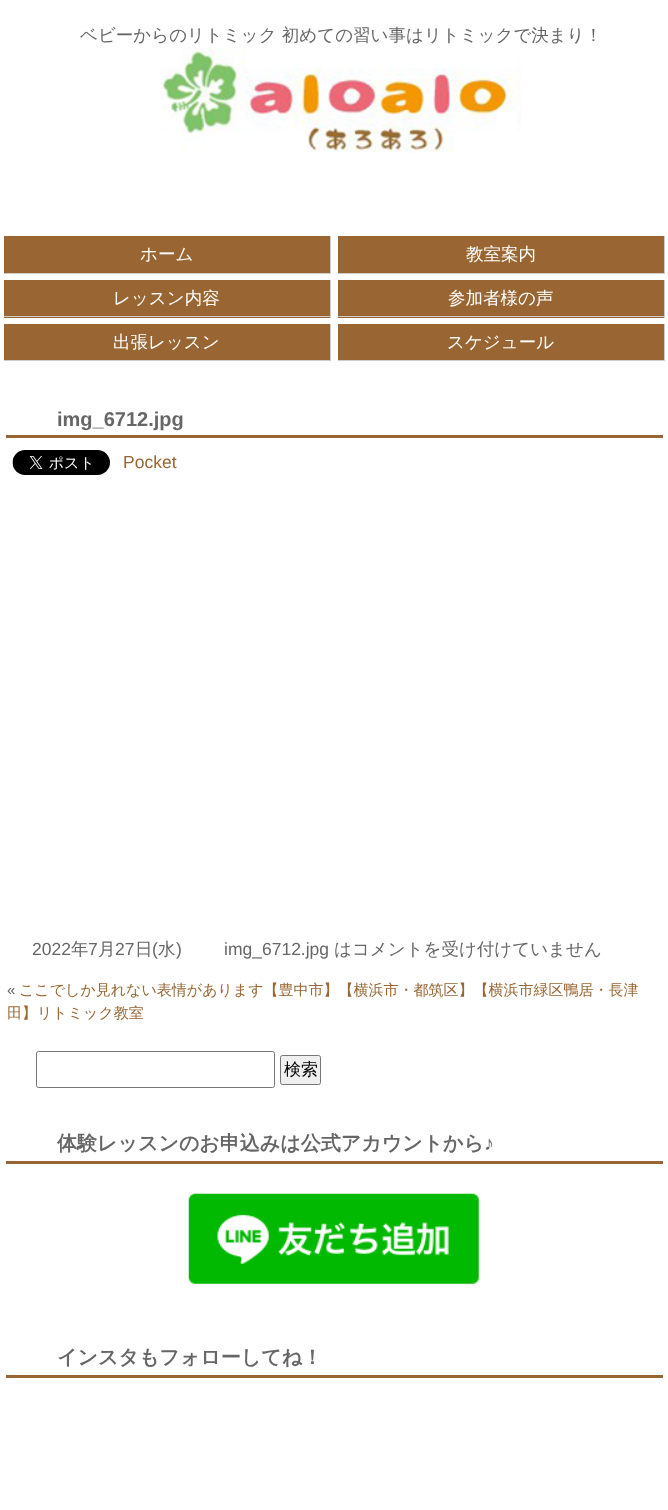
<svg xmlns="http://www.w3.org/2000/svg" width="668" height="1510">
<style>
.a{font:500 17.5px WenQuanYi Zen Hei;fill:#666}
.b{font:500 17.5px WenQuanYi Zen Hei;fill:#fff}
.c{font:bold 20px Liberation Sans;fill:#666}
.d{font:17.5px Liberation Sans;fill:#963}
.e{font:17.5px Liberation Sans;fill:#666}
.f{font:15px Liberation Sans;fill:#666}
.g{font:500 15px WenQuanYi Zen Hei;fill:#963}
.h{font:500 17px WenQuanYi Zen Hei;fill:#000}
.i{font:bold 20px WenQuanYi Zen Hei;fill:#666}
</style>
<rect width="100%" height="100%" fill="#fff"/>
<image href="1.png" x="161" y="47" width="360" height="106"/>
<path fill="#963" d="M4 236h326v37H4z"/>
<path fill="#ccc" d="M330 236h1v38H330z"/>
<path fill="#ccc" d="M4 273h327v1H4z"/>
<path fill="#963" d="M338 236h326v37H338z"/>
<path fill="#ccc" d="M664 236h1v38H664z"/>
<path fill="#ccc" d="M338 273h327v1H338z"/>
<path fill="#963" d="M4 280h326v38H4z"/>
<path fill="#ccc" d="M330 280h1v38H330z"/>
<path fill="#ccc" d="M4 316h327v1H4z"/>
<path fill="#963" d="M338 280h326v38H338z"/>
<path fill="#ccc" d="M664 280h1v38H664z"/>
<path fill="#ccc" d="M338 316h327v1H338z"/>
<path fill="#963" d="M4 324h326v36H4z"/>
<path fill="#ccc" d="M330 324h1v37H330z"/>
<path fill="#ccc" d="M4 360h327v1H4z"/>
<path fill="#963" d="M338 324h326v36H338z"/>
<path fill="#ccc" d="M664 324h1v37H664z"/>
<path fill="#ccc" d="M338 360h327v1H338z"/>
<path fill="#963" d="M6 435h657v3H6z"/>
<image href="2.png" x="12" y="450" width="98" height="25"/>
<rect fill="none" stroke="#767676" x="36.5" y="1051.5" width="238" height="36" rx="2"/>
<rect fill="#efefef" stroke="#767676" x="280.5" y="1055.5" width="40" height="29" rx="2"/>
<path fill="#963" d="M6 1161h657v3H6z"/>
<image href="3.png" x="188" y="1193" width="291" height="91"/>
<path fill="#963" d="M6 1375h657v3H6z"/>
<text class="a" x="80" y="41">ベビーからのリトミック 初めての習い事はリトミックで決まり！</text>
<text class="b" x="140" y="260">ホーム</text>
<text class="b" x="466" y="260">教室案内</text>
<text class="b" x="113" y="304">レッスン内容</text>
<text class="b" x="448" y="304">参加者様の声</text>
<text class="b" x="113" y="348">出張レッスン</text>
<text class="b" x="447" y="348">スケジュール</text>
<text class="c" x="57" y="426">img_6712.jpg</text>
<text class="d" x="123" y="468">Pocket</text>
<text class="e" x="32" y="955">2022</text>
<text class="a" x="71" y="955">年</text>
<text class="e" x="88" y="955">7</text>
<text class="a" x="98" y="955">月</text>
<text class="e" x="115" y="955">27</text>
<text class="a" x="135" y="955">日</text>
<text class="e" x="152" y="955">(</text>
<text class="a" x="158" y="955">水</text>
<text class="e" x="176" y="955">)</text>
<text class="e" x="224" y="955">img_6712.jpg</text>
<text class="a" x="334" y="955">はコメントを受け付けていません</text>
<text class="f" x="7" y="995">«</text>
<text class="g" x="19" y="995">ここでしか見れない表情があります【豊中市】【横浜市・都筑区】【横浜市緑区鴨居・長津</text>
<text class="g" x="7" y="1018">田】リトミック教室</text>
<text class="h" x="284" y="1075">検索</text>
<text class="i" x="57" y="1150">体験レッスンのお申込みは公式アカウントから</text>
<text class="c" x="484" y="1150">♪</text>
<text class="i" x="57" y="1364">インスタもフォローしてね！</text>
</svg>
